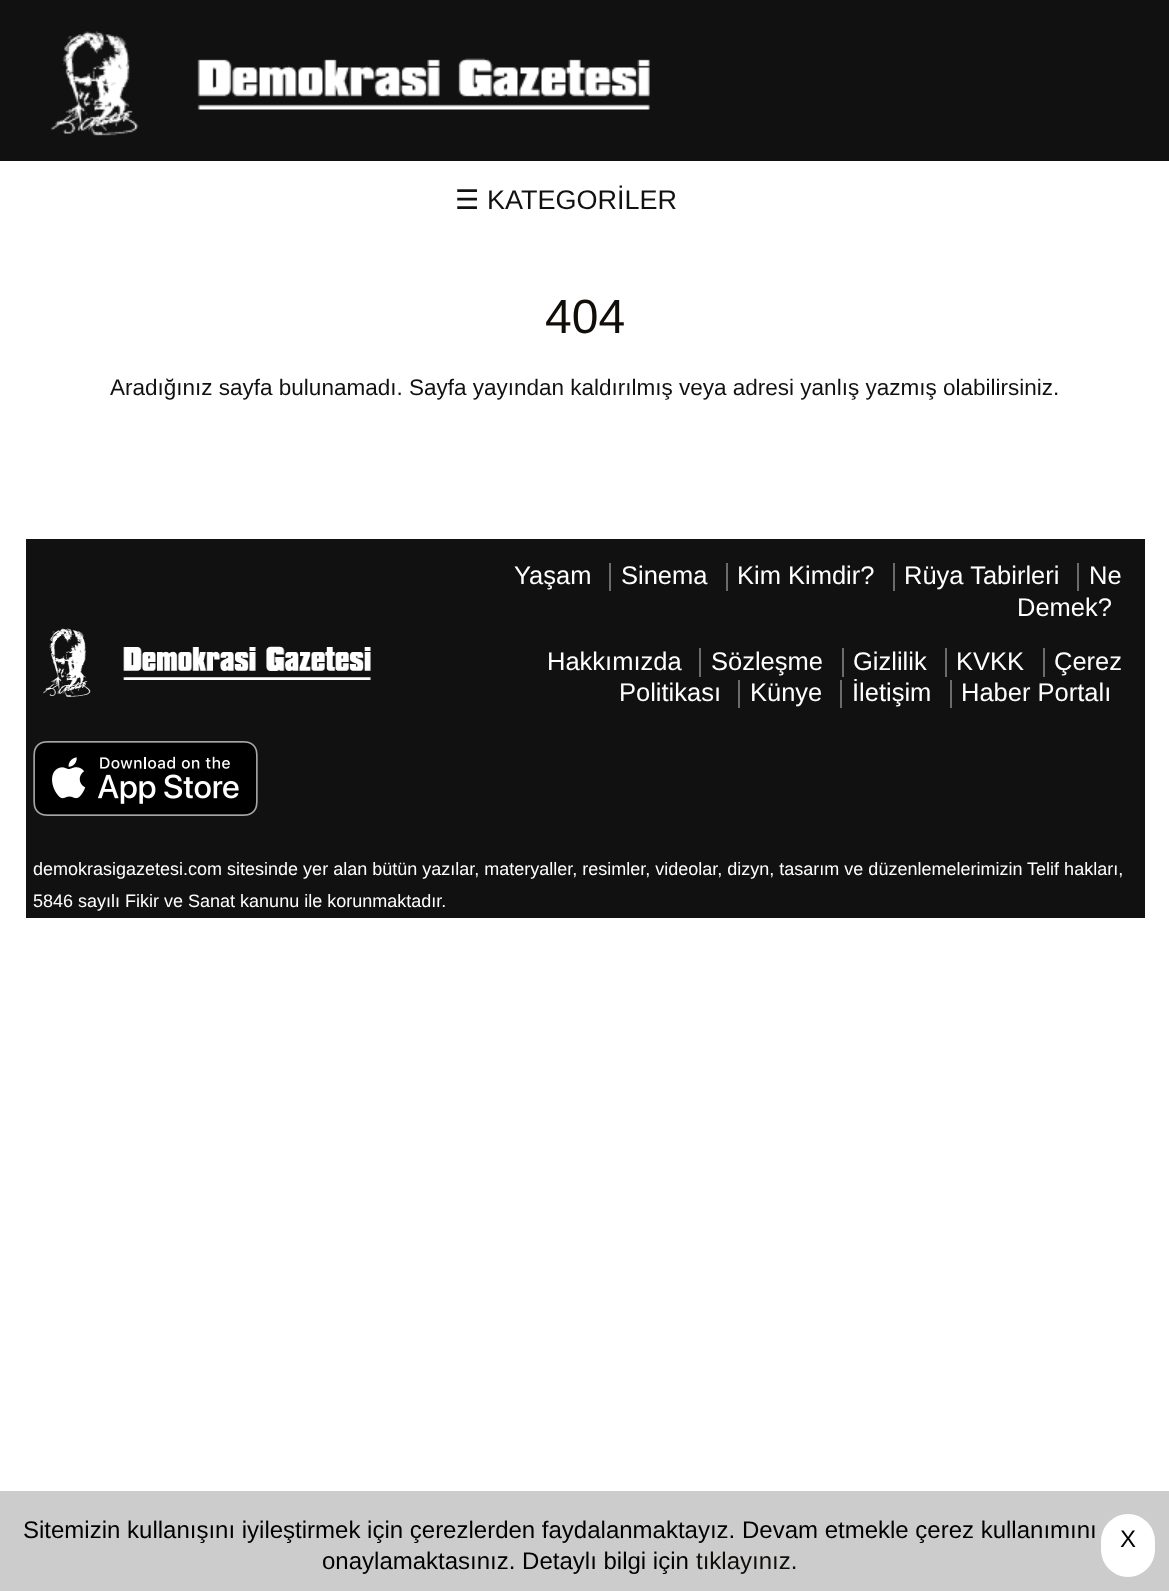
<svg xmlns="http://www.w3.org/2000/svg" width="1169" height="1591">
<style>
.a{font:27px DejaVu Sans;fill:#111}
.b{font:27px Liberation Sans;fill:#111}
.c{font:48px Liberation Sans;fill:#110d09}
.d{font:22.5px Liberation Sans;fill:#111}
.e{font:25.5px Liberation Sans;fill:#fff}
.f{font:18px Liberation Sans;fill:#fff}
.g{font:24px Liberation Sans;fill:#000}
.h{font:24px Liberation Sans;fill:#110d09}
</style>
<rect width="100%" height="100%" fill="#fff"/>
<path fill="#111" d="M0 0h1169v161H0z"/>
<image href="1.png" x="50" y="31" width="600" height="105"/>
<path fill="#111" d="M26 539h1119v379H26z"/>
<path fill="#6b6b6b" d="M609 563h2v28H609z"/>
<path fill="#6b6b6b" d="M726 563h2v28H726z"/>
<path fill="#6b6b6b" d="M893 563h2v28H893z"/>
<path fill="#6b6b6b" d="M1077 563h2v28H1077z"/>
<image href="2.png" x="43" y="628" width="328" height="69"/>
<path fill="#6b6b6b" d="M699 648h2v29H699z"/>
<path fill="#6b6b6b" d="M842 648h2v29H842z"/>
<path fill="#6b6b6b" d="M945 648h2v29H945z"/>
<path fill="#6b6b6b" d="M1043 648h2v29H1043z"/>
<path fill="#6b6b6b" d="M738 680h2v28H738z"/>
<path fill="#6b6b6b" d="M840 680h2v28H840z"/>
<path fill="#6b6b6b" d="M950 680h2v28H950z"/>
<image href="3.png" x="33" y="741" width="225" height="75"/>
<path fill="#ccc" d="M0 1491h1169v100H0z"/>
<rect fill="#fff" x="1101" y="1514" width="54" height="63" rx="27"/>
<text class="a" x="455" y="209">☰</text>
<text class="b" x="487" y="209">KATEGORİLER</text>
<text class="c" x="545" y="333">404</text>
<text class="d" x="110" y="395">Aradığınız sayfa bulunamadı. Sayfa yayından kaldırılmış veya adresi yanlış yazmış olabilirsiniz.</text>
<text class="e" x="514" y="584">Yaşam</text>
<text class="e" x="621" y="584">Sinema</text>
<text class="e" x="737" y="584">Kim Kimdir?</text>
<text class="e" x="904" y="584">Rüya Tabirleri</text>
<text class="e" x="1089" y="584">Ne</text>
<text class="e" x="1017" y="616">Demek?</text>
<text class="e" x="547" y="670">Hakkımızda</text>
<text class="e" x="711" y="670">Sözleşme</text>
<text class="e" x="853" y="670">Gizlilik</text>
<text class="e" x="956" y="670">KVKK</text>
<text class="e" x="1054" y="670">Çerez</text>
<text class="e" x="619" y="701">Politikası</text>
<text class="e" x="750" y="701">Künye</text>
<text class="e" x="852" y="701">İletişim</text>
<text class="e" x="961" y="701">Haber Portalı</text>
<text class="f" x="33" y="875">demokrasigazetesi.com sitesinde yer alan bütün yazılar, materyaller, resimler, videolar, dizyn, tasarım ve düzenlemelerimizin Telif hakları,</text>
<text class="f" x="33" y="907">5846 sayılı Fikir ve Sanat kanunu ile korunmaktadır.</text>
<text class="g" x="23" y="1538">Sitemizin kullanışını iyileştirmek için çerezlerden faydalanmaktayız. Devam etmekle çerez kullanımını</text>
<text class="g" x="322" y="1569">onaylamaktasınız. Detaylı bilgi için</text>
<text class="h" x="696" y="1569">tıklayınız.</text>
<text class="g" x="1120" y="1547">X</text>
</svg>
